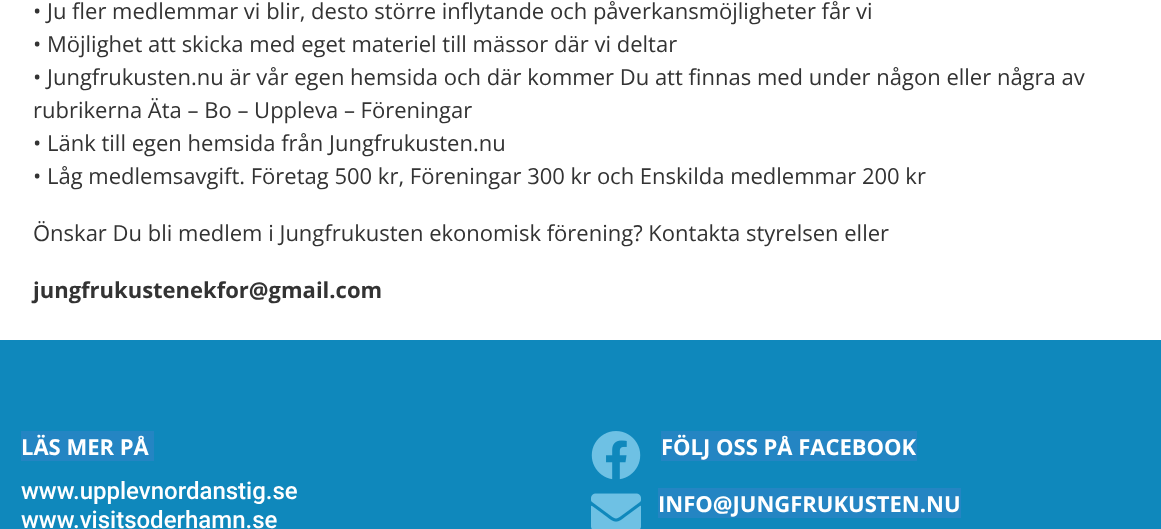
<svg xmlns="http://www.w3.org/2000/svg" width="1161" height="529">
<style>
.a{font:22px Open Sans;fill:#333}
.b{font:bold 22px Open Sans;fill:#333}
.c{font:bold 22px Open Sans;fill:#fff}
.d{font:500 24px Roboto;fill:#fff}
</style>
<rect width="100%" height="100%" fill="#fff"/>
<path fill="#0f88bc" d="M0 340h1161v189H0z"/>
<path fill="#2485c3" d="M21 431h133v30H21z"/>
<image href="1.png" x="591" y="431" width="50" height="49"/>
<path fill="#2485c3" d="M661 431h256v30H661z"/>
<image href="2.png" x="591" y="493" width="50" height="36"/>
<path fill="#2485c3" d="M658 488h303v30H658z"/>
<text class="a" x="33" y="19">• Ju fler medlemmar vi blir, desto större inflytande och påverkansmöjligheter får vi</text>
<text class="a" x="33" y="52">• Möjlighet att skicka med eget materiel till mässor där vi deltar</text>
<text class="a" x="33" y="85">• Jungfrukusten.nu är vår egen hemsida och där kommer Du att finnas med under någon eller några av</text>
<text class="a" x="33" y="118">rubrikerna Äta – Bo – Uppleva – Föreningar</text>
<text class="a" x="33" y="151">• Länk till egen hemsida från Jungfrukusten.nu</text>
<text class="a" x="33" y="184">• Låg medlemsavgift. Företag 500 kr, Föreningar 300 kr och Enskilda medlemmar 200 kr</text>
<text class="a" x="33" y="241">Önskar Du bli medlem i Jungfrukusten ekonomisk förening? Kontakta styrelsen eller</text>
<text class="b" x="33" y="298">jungfrukustenekfor@gmail.com</text>
<text class="c" x="21" y="455">LÄS MER PÅ</text>
<text class="d" x="21" y="499">www.upplevnordanstig.se</text>
<text class="d" x="21" y="528">www.visitsoderhamn.se</text>
<text class="c" x="661" y="455">FÖLJ OSS PÅ FACEBOOK</text>
<text class="c" x="658" y="512">INFO@JUNGFRUKUSTEN.NU</text>
</svg>
